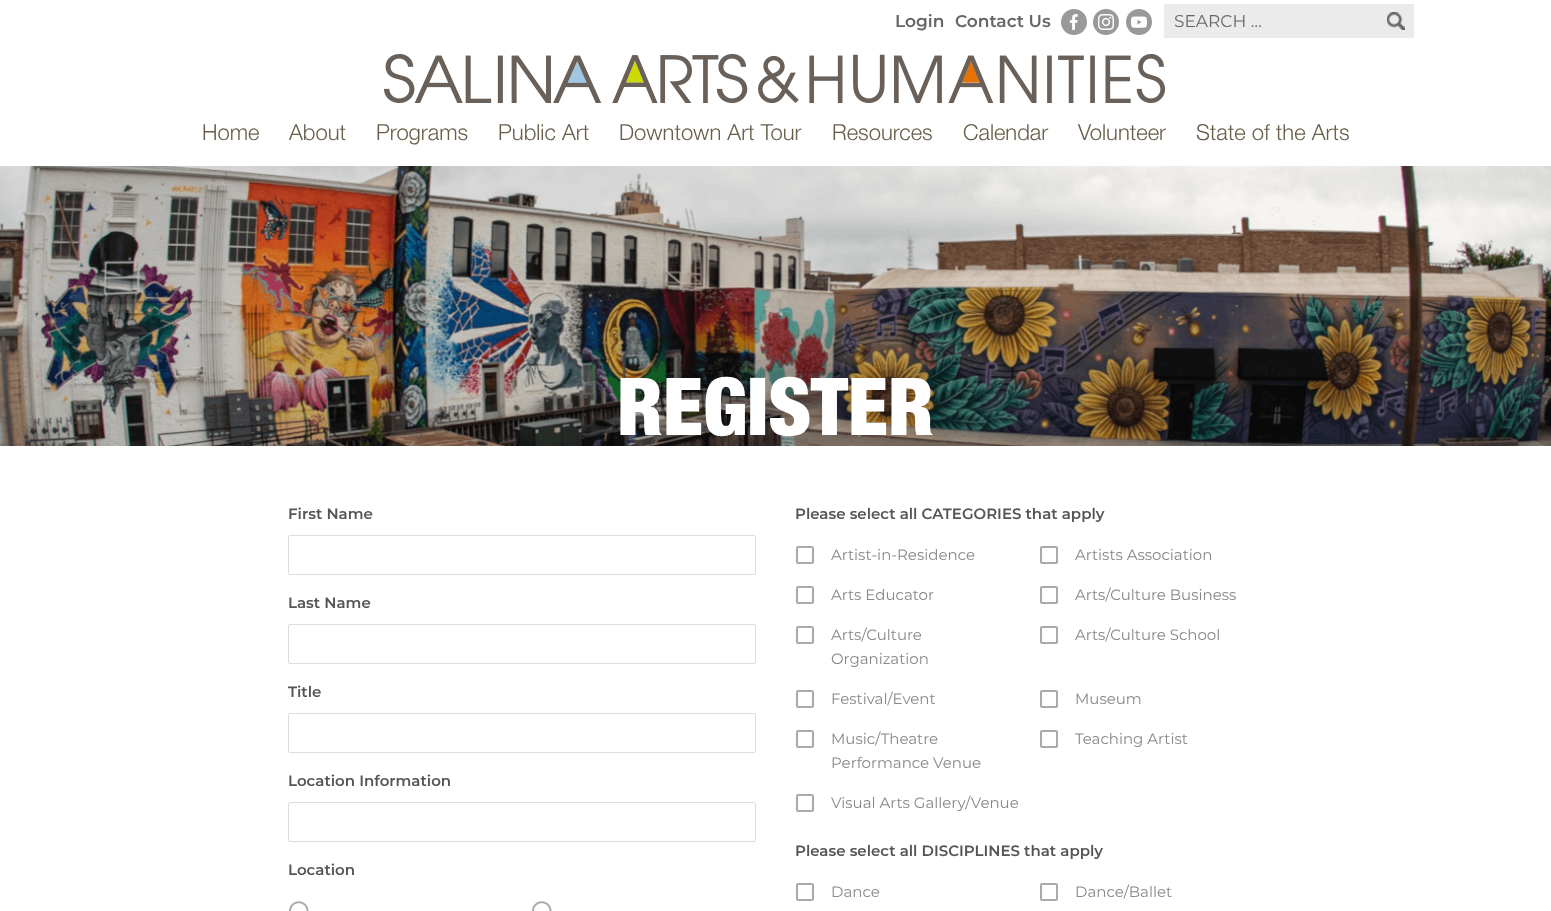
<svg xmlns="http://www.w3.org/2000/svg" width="1551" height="911">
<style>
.a{font:600 17px Montserrat;fill:#666}
.b{font:17px Montserrat;fill:#666}
.c{font:300 22px Helvetica Neue;fill:#695e4a}
.d{font:900 80px Helvetica Neue;fill:#fff}
.e{font:600 15px Montserrat;fill:#555}
.f{font:15px Montserrat;fill:#888}
</style>
<rect width="100%" height="100%" fill="#fff"/>
<circle fill="#999" cx="1074" cy="22" r="13"/>
<image href="1.png" x="1069" y="14" width="9" height="16"/>
<circle fill="#999" cx="1106" cy="22" r="13"/>
<image href="2.png" x="1098" y="14" width="16" height="16"/>
<circle fill="#999" cx="1139" cy="22" r="13"/>
<image href="3.png" x="1131" y="16" width="16" height="12"/>
<path fill="#ebebeb" d="M1164 4h250v34H1164z"/>
<image href="4.png" x="1387" y="12" width="18" height="18"/>
<image href="5.png" x="384" y="54" width="781" height="49"/>
<image href="6.png" x="0" y="166" width="1551" height="280"/>
<rect fill="none" stroke="#ddd" x="288.5" y="535.5" width="467" height="39" rx="1.5"/>
<rect fill="none" stroke="#ddd" x="288.5" y="624.5" width="467" height="39" rx="1.5"/>
<rect fill="none" stroke="#ddd" x="288.5" y="713.5" width="467" height="39" rx="1.5"/>
<rect fill="none" stroke="#ddd" x="288.5" y="802.5" width="467" height="39" rx="1.5"/>
<image href="7.png" x="289" y="901" width="20" height="10"/>
<image href="7.png" x="532" y="901" width="20" height="10"/>
<image href="8.png" x="796" y="546" width="18" height="18"/>
<image href="8.png" x="1040" y="546" width="18" height="18"/>
<image href="8.png" x="796" y="586" width="18" height="18"/>
<image href="8.png" x="1040" y="586" width="18" height="18"/>
<image href="8.png" x="796" y="626" width="18" height="18"/>
<image href="8.png" x="1040" y="626" width="18" height="18"/>
<image href="8.png" x="796" y="690" width="18" height="18"/>
<image href="8.png" x="1040" y="690" width="18" height="18"/>
<image href="8.png" x="796" y="730" width="18" height="18"/>
<image href="8.png" x="1040" y="730" width="18" height="18"/>
<image href="8.png" x="796" y="794" width="18" height="18"/>
<image href="8.png" x="796" y="883" width="18" height="18"/>
<image href="8.png" x="1040" y="883" width="18" height="18"/>
<text class="a" x="895" y="27">Login</text>
<text class="a" x="955" y="27">Contact Us</text>
<text class="b" x="1174" y="27">SEARCH …</text>
<text class="c" x="202" y="140">Home</text>
<text class="c" x="289" y="140">About</text>
<text class="c" x="376" y="140">Programs</text>
<text class="c" x="498" y="140">Public Art</text>
<text class="c" x="619" y="140">Downtown Art Tour</text>
<text class="c" x="832" y="140">Resources</text>
<text class="c" x="963" y="140">Calendar</text>
<text class="c" x="1078" y="140">Volunteer</text>
<text class="c" x="1196" y="140">State of the Arts</text>
<text class="d" x="617" y="435">REGISTER</text>
<text class="e" x="288" y="519">First Name</text>
<text class="e" x="288" y="608">Last Name</text>
<text class="e" x="288" y="697">Title</text>
<text class="e" x="288" y="786">Location Information</text>
<text class="e" x="288" y="875">Location</text>
<text class="e" x="795" y="519">Please select all CATEGORIES that apply</text>
<text class="f" x="831" y="560">Artist-in-Residence</text>
<text class="f" x="1075" y="560">Artists Association</text>
<text class="f" x="831" y="600">Arts Educator</text>
<text class="f" x="1075" y="600">Arts/Culture Business</text>
<text class="f" x="831" y="640">Arts/Culture</text>
<text class="f" x="831" y="664">Organization</text>
<text class="f" x="1075" y="640">Arts/Culture School</text>
<text class="f" x="831" y="704">Festival/Event</text>
<text class="f" x="1075" y="704">Museum</text>
<text class="f" x="831" y="744">Music/Theatre</text>
<text class="f" x="831" y="768">Performance Venue</text>
<text class="f" x="1075" y="744">Teaching Artist</text>
<text class="f" x="831" y="808">Visual Arts Gallery/Venue</text>
<text class="e" x="795" y="856">Please select all DISCIPLINES that apply</text>
<text class="f" x="831" y="897">Dance</text>
<text class="f" x="1075" y="897">Dance/Ballet</text>
</svg>
